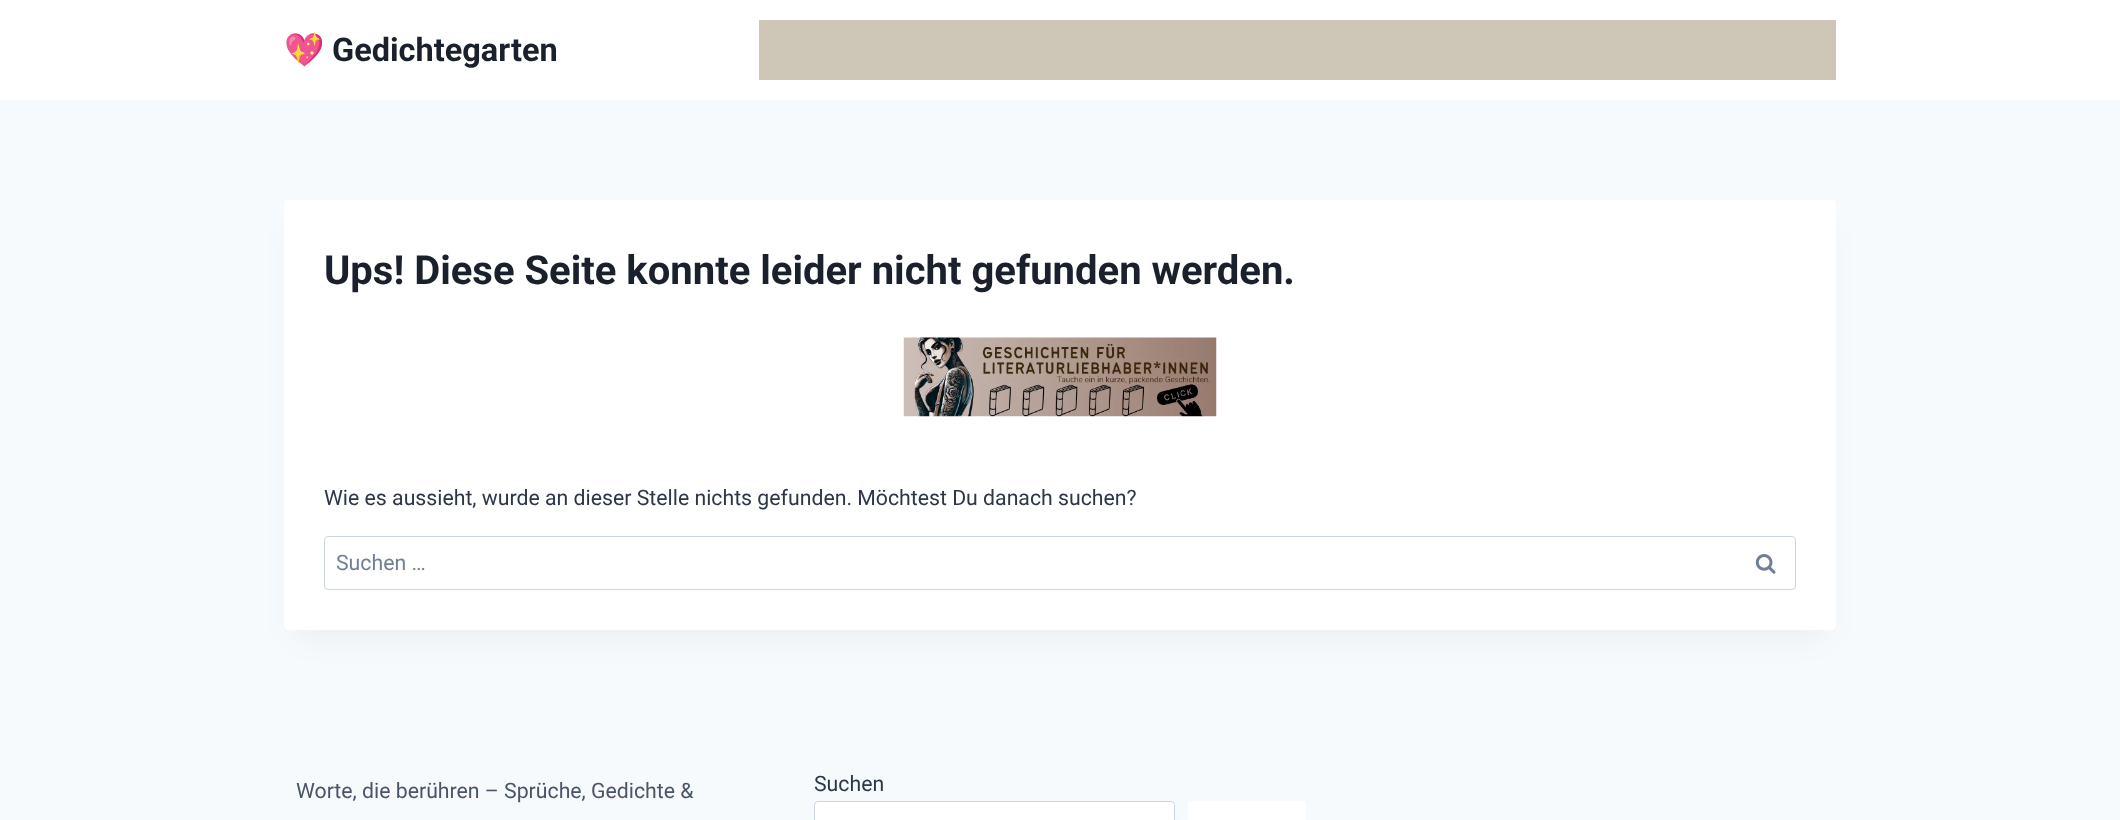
<svg xmlns="http://www.w3.org/2000/svg" width="2120" height="820">
<style>
.a{font:bold 32.5px Noto Color Emoji;fill:#1a202c}
.b{font:bold 32.5px Roboto;fill:#1a202c}
.c{font:bold 40px Roboto;fill:#1a202c}
.d{font:21.25px Roboto;fill:#2d3748}
.e{font:21.25px Roboto;fill:#718096}
.f{font:21.25px Roboto;fill:#4a5568}
</style>
<rect width="100%" height="100%" fill="#f7fafc"/>
<path fill="#fff" d="M0 0h2120v100H0z"/>
<path fill="#cec6b6" d="M759 20h1077v60H759z"/>
<path fill="#0000000d" filter="blur(15.5px)" d="M296 231h1528v405H296z"/>
<rect fill="#fff" x="284" y="200" width="1552" height="430" rx="5"/>
<image href="1.png" x="903" y="337" width="314" height="80"/>
<rect fill="none" stroke="#cbd5e0" x="324.5" y="536.5" width="1471" height="53" rx="3.5"/>
<image href="2.png" x="1755" y="554" width="21" height="20"/>
<rect fill="#fff" stroke="#cbd5e0" x="814.5" y="801.5" width="360" height="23" rx="3.5"/>
<rect fill="#fff" x="1188" y="801" width="118" height="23" rx="4"/>
<text class="a" x="284" y="61">💖</text>
<text class="b" x="332" y="61">Gedichtegarten</text>
<text class="c" x="324" y="284">Ups! Diese Seite konnte leider nicht gefunden werden.</text>
<text class="d" x="324" y="505">Wie es aussieht, wurde an dieser Stelle nichts gefunden. Möchtest Du danach suchen?</text>
<text class="e" x="336" y="570">Suchen …</text>
<text class="f" x="296" y="798">Worte, die berühren – Sprüche, Gedichte &amp;</text>
<text class="d" x="814" y="791">Suchen</text>
</svg>
